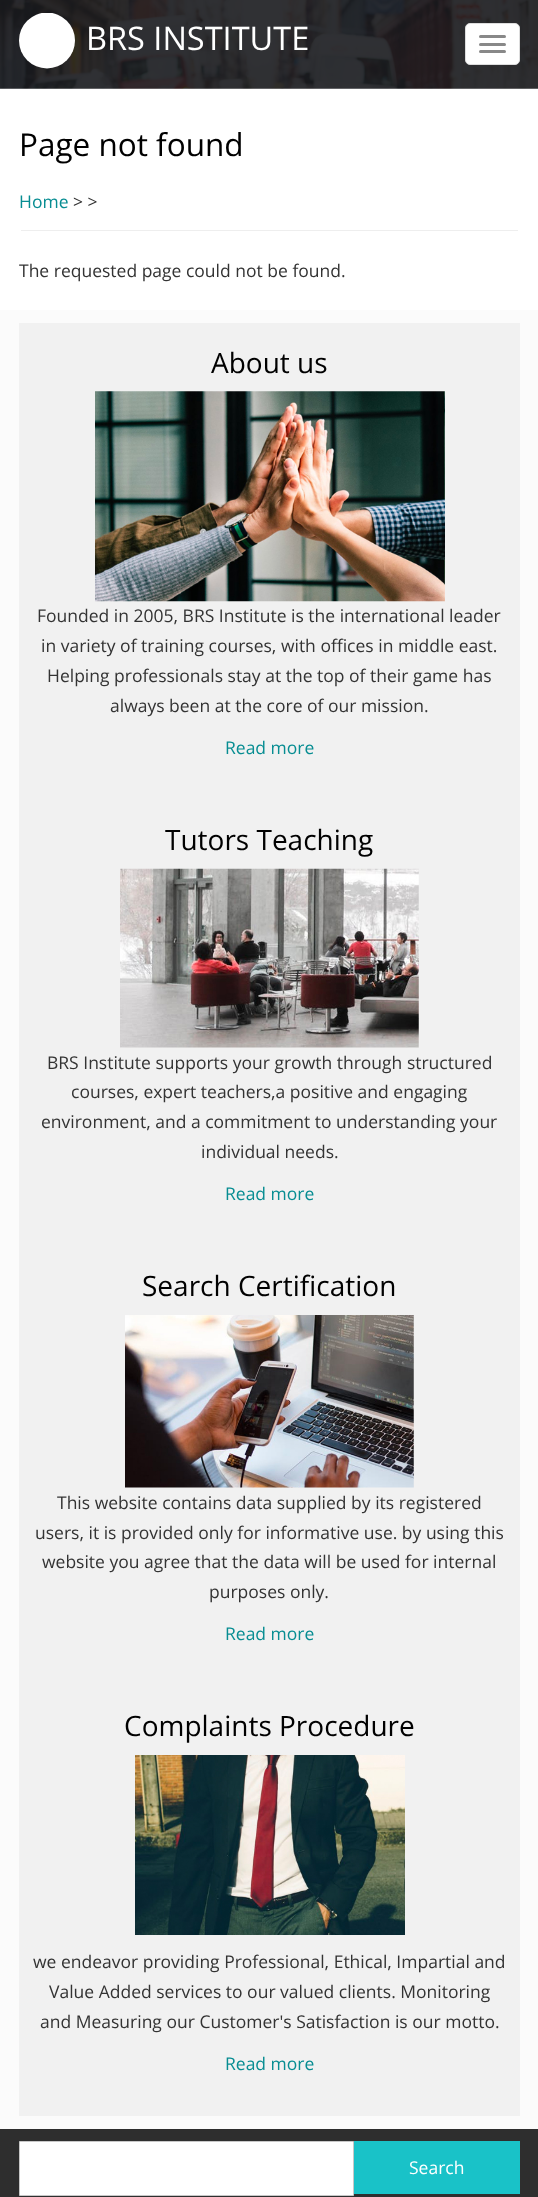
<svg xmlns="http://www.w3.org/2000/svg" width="538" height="2197">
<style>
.a{font:32.5px Open Sans;fill:#fff}
.b{font:31.5px Open Sans;fill:#000}
.c{font:17.5px Open Sans;fill:#078d92}
.d{font:17.5px Open Sans;fill:#333}
.e{font:28px Open Sans;fill:#000}
.f{font:17.5px Open Sans;fill:#fff}
</style>
<defs>
<clipPath id="clip1"><path d="M19 13h56v56H19z"/></clipPath>
</defs>
<rect width="100%" height="100%" fill="#fff"/>
<image href="1.png" x="0" y="0" width="538" height="89"/>
<g clip-path="url(#clip1)">
<circle fill="#fff" cx="47" cy="40.5" r="28"/>
</g>
<rect fill="#fff" stroke="#ddd" x="465.5" y="23.5" width="54" height="41" rx="4.5"/>
<rect fill="#888" x="479" y="35" width="27" height="3" rx="1.5"/>
<rect fill="#888" x="479" y="43" width="27" height="3" rx="1.5"/>
<rect fill="#888" x="479" y="50" width="27" height="3" rx="1.5"/>
<path fill="#eee" d="M21 230h497v1H21z"/>
<path fill="#fbfbfb" d="M0 310h538v1819H0z"/>
<path fill="#f1f1f1" d="M19 323h501v1793H19z"/>
<image href="2.png" x="95" y="391" width="350" height="211"/>
<image href="3.png" x="120" y="868" width="299" height="180"/>
<image href="4.png" x="125" y="1315" width="289" height="173"/>
<image href="5.png" x="135" y="1755" width="270" height="180"/>
<path fill="#2e2e2e" d="M0 2129h538v68H0z"/>
<path fill="#fff" stroke="#c7c7c7" d="M19.5 2141.5h334v54H19.5z"/>
<path fill="#19c2c8" d="M354 2141h166v53H354z"/>
<text class="a" x="86" y="50">BRS INSTITUTE</text>
<text class="b" x="19" y="156">Page not found</text>
<text class="c" x="19" y="208">Home</text>
<text class="d" x="73" y="208">&gt; &gt;</text>
<text class="d" x="19" y="277">The requested page could not be found.</text>
<text class="e" x="211" y="373">About us</text>
<text class="d" x="37" y="622">Founded in 2005, BRS Institute is the international leader</text>
<text class="d" x="41" y="652">in variety of training courses, with offices in middle east.</text>
<text class="d" x="47" y="682">Helping professionals stay at the top of their game has</text>
<text class="d" x="110" y="712">always been at the core of our mission.</text>
<text class="c" x="225" y="754">Read more</text>
<text class="e" x="165" y="850">Tutors Teaching</text>
<text class="d" x="47" y="1069">BRS Institute supports your growth through structured</text>
<text class="d" x="71" y="1098">courses, expert teachers,a positive and engaging</text>
<text class="d" x="41" y="1128">environment, and a commitment to understanding your</text>
<text class="d" x="201" y="1158">individual needs.</text>
<text class="c" x="225" y="1200">Read more</text>
<text class="e" x="142" y="1296">Search Certification</text>
<text class="d" x="57" y="1509">This website contains data supplied by its registered</text>
<text class="d" x="35" y="1539">users, it is provided only for informative use. by using this</text>
<text class="d" x="42" y="1568">website you agree that the data will be used for internal</text>
<text class="d" x="209" y="1598">purposes only.</text>
<text class="c" x="225" y="1640">Read more</text>
<text class="e" x="124" y="1736">Complaints Procedure</text>
<text class="d" x="33" y="1968">we endeavor providing Professional, Ethical, Impartial and</text>
<text class="d" x="49" y="1998">Value Added services to our valued clients. Monitoring</text>
<text class="d" x="40" y="2028">and Measuring our Customer's Satisfaction is our motto.</text>
<text class="c" x="225" y="2070">Read more</text>
<text class="f" x="409" y="2174">Search</text>
</svg>
